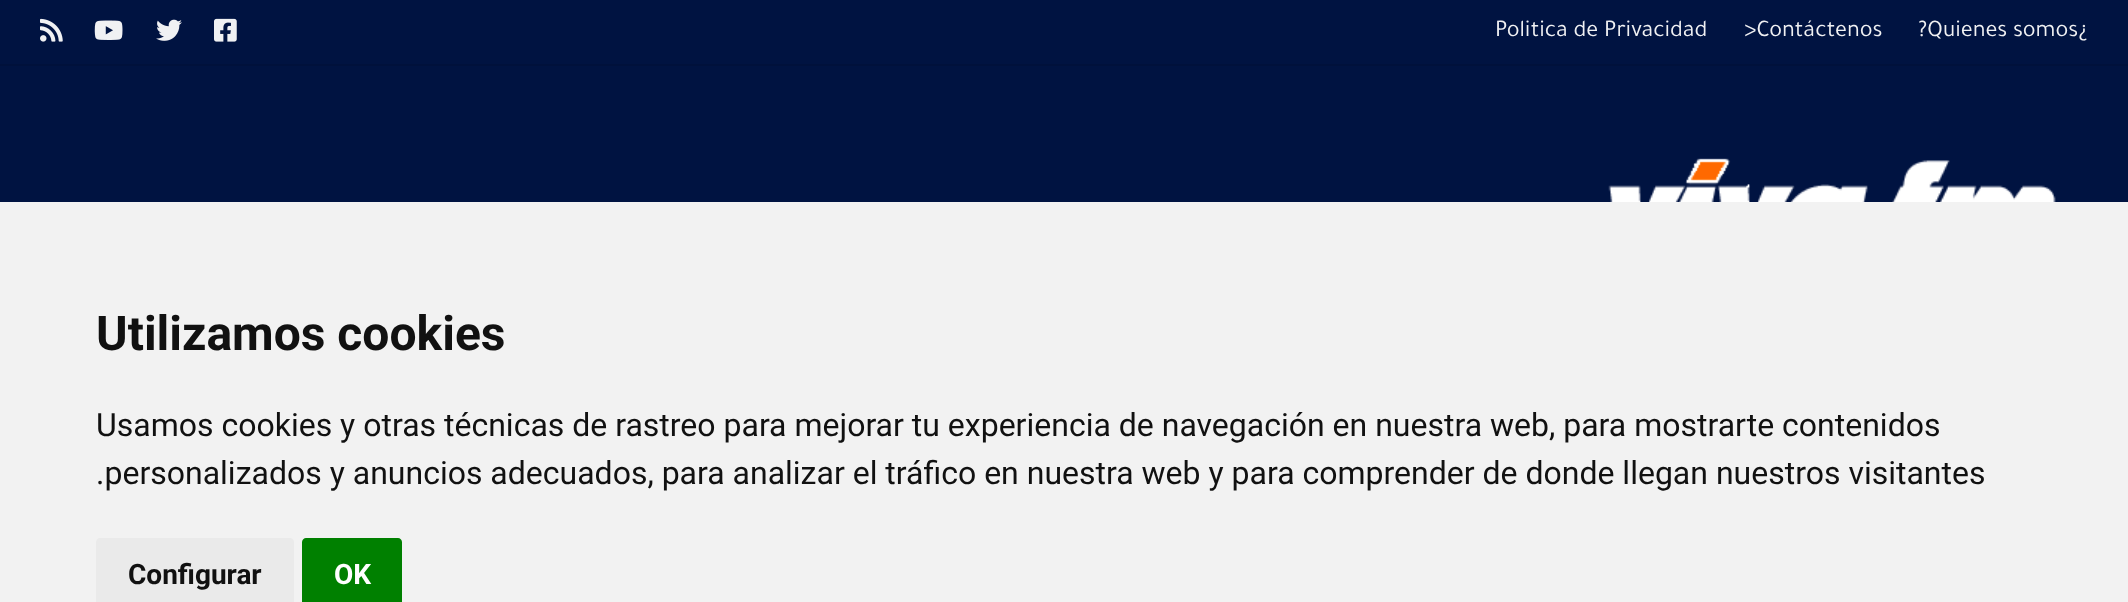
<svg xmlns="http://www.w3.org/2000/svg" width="2128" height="602">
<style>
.a{font:24px Tajawal;fill:#f0f1f3}
.b{font:bold 48px Roboto;fill:#111}
.c{font:32px Roboto;fill:#111}
.d{font:bold 28px Roboto;fill:#111}
.e{font:bold 28px Roboto;fill:#fff}
</style>
<rect width="100%" height="100%" fill="#001341"/>
<path fill="#00113b" d="M0 64h2128v2H0z"/>
<image href="1.png" x="40" y="18" width="23" height="24"/>
<image href="2.png" x="94" y="20" width="29" height="20"/>
<image href="3.png" x="156" y="19" width="26" height="22"/>
<image href="4.png" x="214" y="18" width="23" height="24"/>
<image href="5.png" x="1608" y="158" width="448" height="44"/>
<path fill="#f2f2f2" d="M0 202h2128v400H0z"/>
<path fill="#eaeaea" d="M100 538h190c2 0 4 2 4 4v60h-198v-60c0-2 2-4 4-4z"/>
<path fill="#008000" d="M306 538h92c2 0 4 2 4 4v60h-100v-60c0-2 2-4 4-4z"/>
<text class="a" x="1495" y="36">Politica de Privacidad</text>
<text class="a" x="1744" y="36">&gt;Contáctenos</text>
<text class="a" x="1918" y="36">?Quienes somos¿</text>
<text class="b" x="96" y="350">Utilizamos cookies</text>
<text class="c" x="96" y="436">Usamos cookies y otras técnicas de rastreo para mejorar tu experiencia de navegación en nuestra web, para mostrarte contenidos</text>
<text class="c" x="96" y="484">.personalizados y anuncios adecuados, para analizar el tráfico en nuestra web y para comprender de donde llegan nuestros visitantes</text>
<text class="d" x="128" y="584">Configurar</text>
<text class="e" x="334" y="584">OK</text>
</svg>
